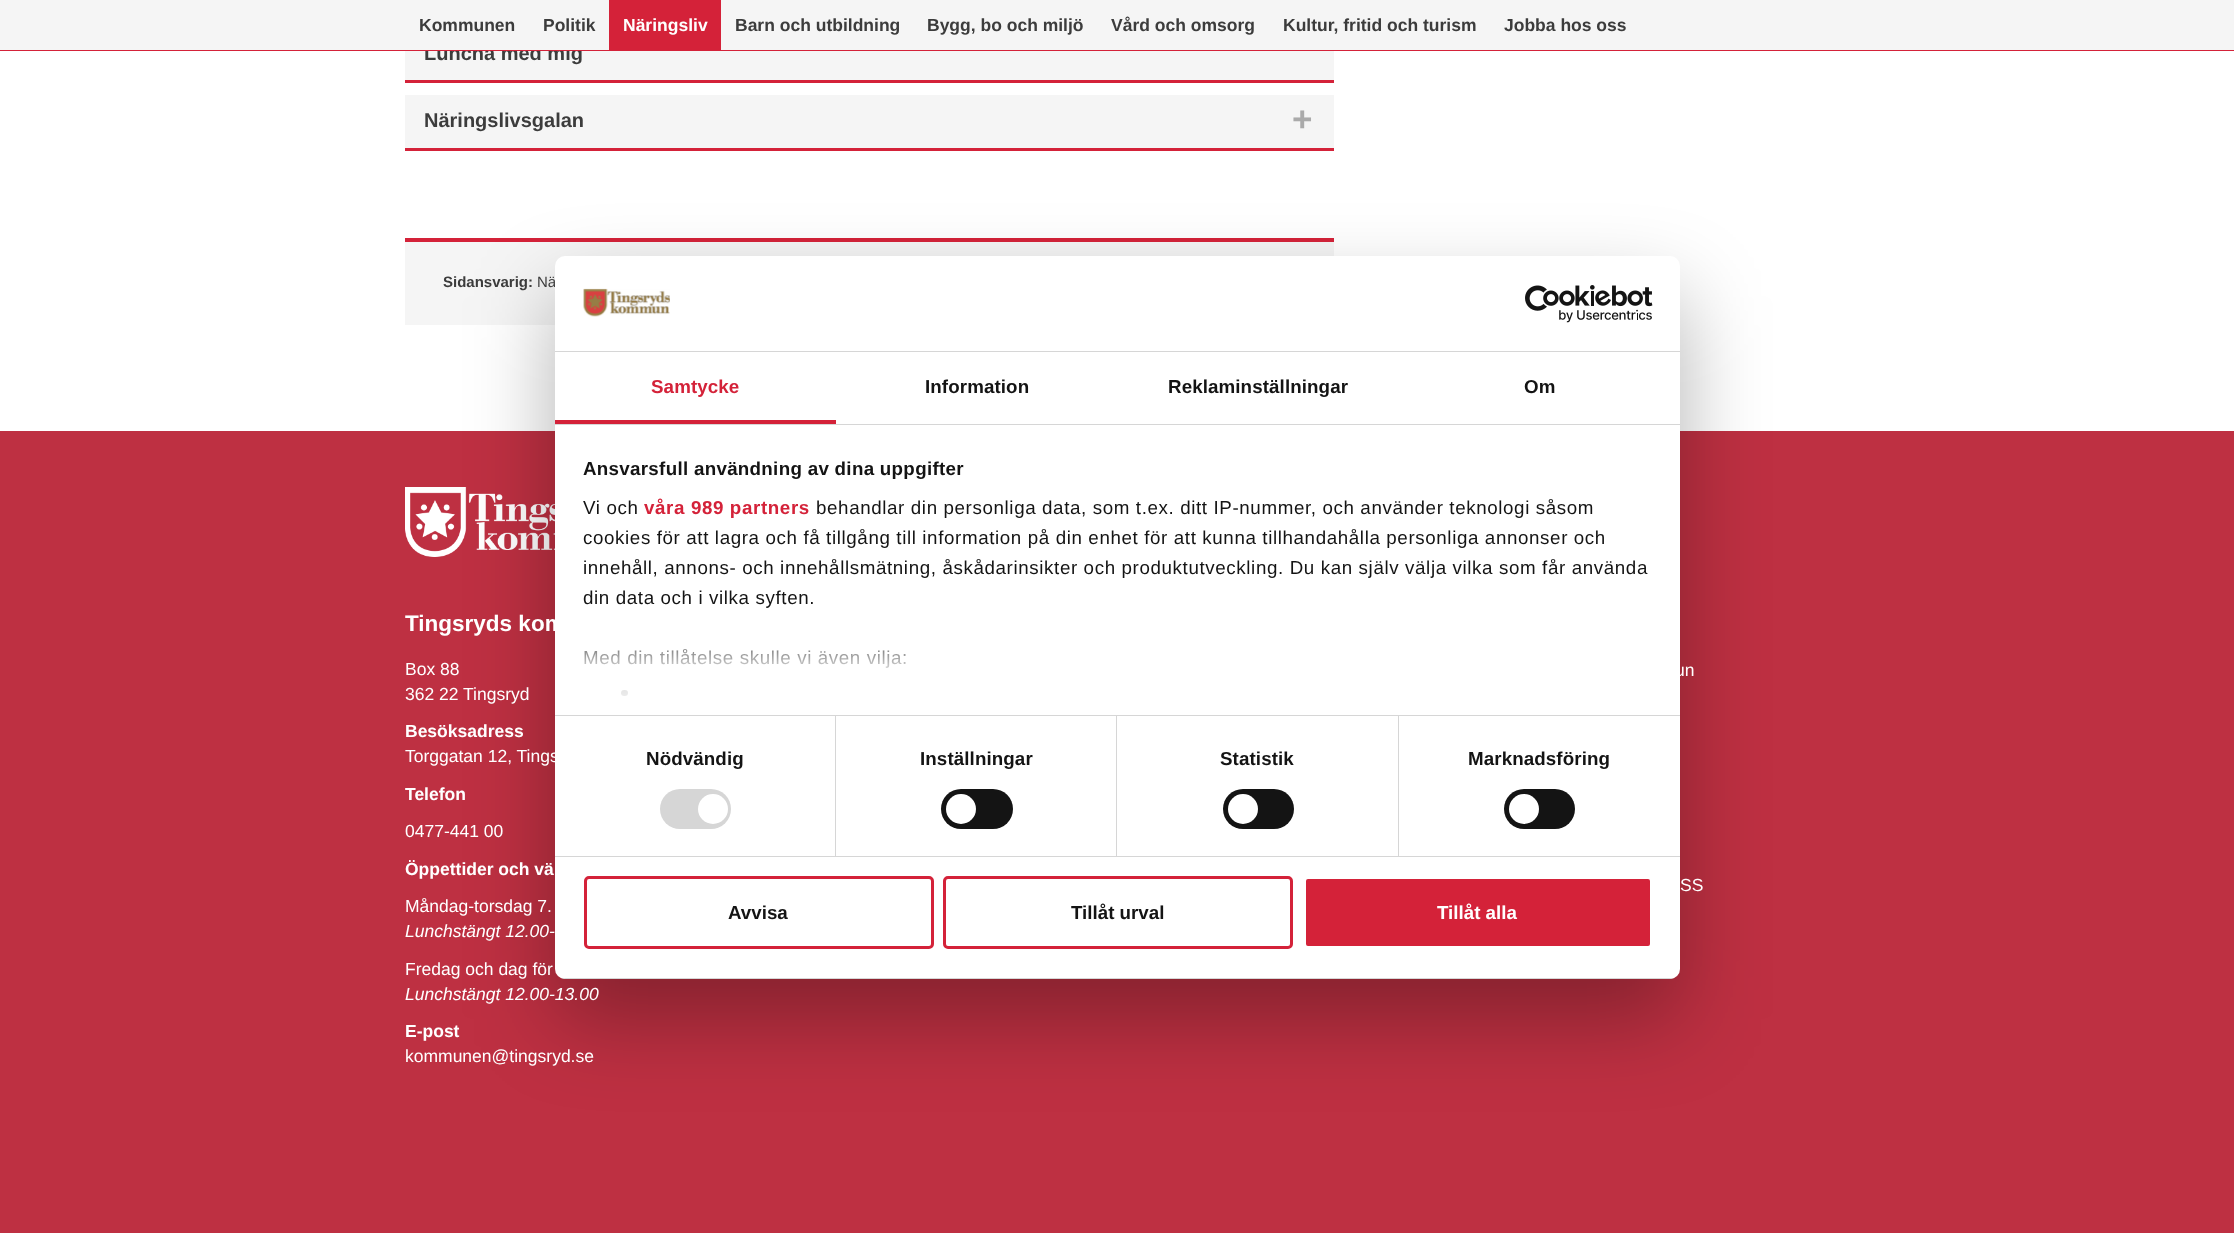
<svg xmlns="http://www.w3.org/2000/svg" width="2234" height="1233">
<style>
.a{font:bold 20px Liberation Sans;fill:#3c3c3c}
.b{font:bold 17.5px Liberation Sans;fill:#3c3c3c}
.c{font:bold 17.5px Liberation Sans;fill:#fff}
.d{font:bold 35px Liberation Sans;fill:#aaa}
.e{font:bold 15px Liberation Sans;fill:#3c3c3c}
.f{font:15px Liberation Sans;fill:#3c3c3c}
.g{font:bold 18.75px Liberation Sans;letter-spacing:0.1px;fill:#d42239}
.h{font:bold 18.75px Liberation Sans;letter-spacing:0.1px;fill:#141414}
.i{font:bold 18.75px Liberation Sans;letter-spacing:0.3px;fill:#141414}
.j{font:18.75px Liberation Sans;letter-spacing:0.62px;fill:#141414}
.k{font:bold 18.75px Liberation Sans;letter-spacing:0.62px;fill:#d42239}
.l{font:bold 18.75px Liberation Sans;fill:#141414}
.m{font:bold 18.75px Liberation Sans;fill:#fff}
.n{font:bold 22.5px Liberation Sans;fill:#fff}
.o{font:17.5px Liberation Sans;fill:#fff}
.p{font:italic 17.5px Liberation Sans;fill:#fff}
</style>
<defs>
<linearGradient id="g1" gradientUnits="userSpaceOnUse" x1="1105" y1="715" x2="1105" y2="621"><stop offset="0" stop-color="#fff"/><stop offset="0.5" stop-color="#fff" stop-opacity="0.8"/><stop offset="1" stop-color="#fff" stop-opacity="0"/></linearGradient>
<clipPath id="clip1"><rect x="555" y="256" width="1125" height="723" rx="10"/></clipPath>
</defs>
<rect width="100%" height="100%" fill="#fff"/>
<path fill="#f5f5f5" d="M405 51h929v29H405z"/>
<path fill="#d42239" d="M405 80h929v3H405z"/>
<path fill="#f5f5f5" d="M405 95h929v53H405z"/>
<path fill="#d42239" d="M405 148h929v3H405z"/>
<path fill="#f5f5f5" d="M405 242h929v83H405z"/>
<path fill="#d42239" d="M405 238h929v4H405z"/>
<path fill="#be3042" d="M0 431h2234v802H0z"/>
<image href="3.png" x="405" y="487" width="150" height="70"/>
<rect fill="#0000004d" filter="blur(42.5px)" x="555" y="296" width="1125" height="723" rx="10"/>
<text class="a" x="424" y="60">Luncha med mig</text>
<path fill="#f5f5f5" d="M0 0h2234v50H0z"/>
<text class="b" x="1504" y="31">Jobba hos oss</text>
<text class="b" x="1283" y="31">Kultur, fritid och turism</text>
<text class="b" x="1111" y="31">Vård och omsorg</text>
<text class="b" x="927" y="31">Bygg, bo och miljö</text>
<text class="b" x="735" y="31">Barn och utbildning</text>
<path fill="#d42239" d="M609 0h112v50H609z"/>
<text class="c" x="623" y="31">Näringsliv</text>
<text class="b" x="543" y="31">Politik</text>
<text class="b" x="419" y="31">Kommunen</text>
<path fill="#d42239" d="M0 50h2234v1H0z"/>
<text class="a" x="424" y="127">Näringslivsgalan</text>
<text class="d" x="1292" y="131">+</text>
<text class="e" x="443" y="287">Sidansvarig:</text>
<text class="f" x="537" y="287">Nä</text>
<rect fill="#fff" x="555" y="256" width="1125" height="723" rx="10"/>
<path fill="#d6d6d6" d="M555 351h1125v1H555z"/>
<image href="1.png" x="583" y="288" width="87" height="29"/>
<image href="2.png" x="1525" y="285" width="128" height="38"/>
<path fill="#d6d6d6" d="M555 424h1125v1H555z"/>
<path fill="#d42239" d="M555 420h281v4H555z"/>
<text class="g" x="651" y="393">Samtycke</text>
<text class="h" x="925" y="393">Information</text>
<text class="h" x="1168" y="393">Reklaminställningar</text>
<text class="h" x="1524" y="393">Om</text>
<path fill="#d6d6d6" d="M555 715h1125v1H555z"/>
<text class="i" x="583" y="475">Ansvarsfull användning av dina uppgifter</text>
<text class="j" x="583" y="514">Vi och</text>
<text class="k" x="644" y="514">våra 989 partners</text>
<text class="j" x="816" y="514">behandlar din personliga data, som t.ex. ditt IP-nummer, och använder teknologi såsom</text>
<text class="j" x="583" y="544">cookies för att lagra och få tillgång till information på din enhet för att kunna tillhandahålla personliga annonser och</text>
<text class="j" x="583" y="574">innehåll, annons- och innehållsmätning, åskådarinsikter och produktutveckling. Du kan själv välja vilka som får använda</text>
<text class="j" x="583" y="604">din data och i vilka syften.</text>
<text class="j" x="583" y="664">Med din tillåtelse skulle vi även vilja:</text>
<rect fill="#141414" x="621" y="690" width="7" height="6" rx="3"/>
<path fill="url(#g1)" d="M584 648h322v48H584z"/>
<path fill="#d6d6d6" d="M555 856h1125v1H555z"/>
<path fill="#d6d6d6" d="M835 716h1v140H835z"/>
<text class="h" x="646" y="765">Nödvändig</text>
<rect fill="#d6d6d6" x="660" y="789" width="71" height="40" rx="20"/>
<circle fill="#fff" cx="713" cy="809" r="15"/>
<path fill="#d6d6d6" d="M1116 716h1v140H1116z"/>
<text class="h" x="920" y="765">Inställningar</text>
<rect fill="#141414" x="941" y="789" width="72" height="40" rx="20"/>
<circle fill="#fff" cx="961" cy="809" r="15"/>
<path fill="#d6d6d6" d="M1398 716h1v140H1398z"/>
<text class="h" x="1220" y="765">Statistik</text>
<rect fill="#141414" x="1223" y="789" width="71" height="40" rx="20"/>
<circle fill="#fff" cx="1243" cy="809" r="15"/>
<text class="h" x="1468" y="765">Marknadsföring</text>
<rect fill="#141414" x="1504" y="789" width="71" height="40" rx="20"/>
<circle fill="#fff" cx="1524" cy="809" r="15"/>
<g clip-path="url(#clip1)">
<path fill="#d6d6d6" d="M555 978h1125v1H555z"/>
</g>
<rect fill="none" stroke="#d42239" stroke-width="3" x="585.5" y="877.5" width="347" height="70" rx="3.5"/>
<text class="l" x="728" y="919">Avvisa</text>
<rect fill="none" stroke="#d42239" stroke-width="3" x="944.5" y="877.5" width="347" height="70" rx="3.5"/>
<text class="l" x="1071" y="919">Tillåt urval</text>
<rect fill="#d42239" stroke="#fff" stroke-width="3" x="1304.5" y="877.5" width="347" height="70" rx="3.5"/>
<text class="m" x="1437" y="919">Tillåt alla</text>
<text class="n" x="405" y="631">Tingsryds kom</text>
<text class="o" x="405" y="675">Box 88</text>
<text class="o" x="405" y="700">362 22 Tingsryd</text>
<text class="c" x="405" y="737">Besöksadress</text>
<text class="o" x="405" y="762">Torggatan 12, Tings</text>
<text class="c" x="405" y="800">Telefon</text>
<text class="o" x="405" y="837">0477-441 00</text>
<text class="c" x="405" y="875">Öppettider och vä</text>
<text class="o" x="405" y="912">Måndag-torsdag 7.</text>
<text class="p" x="405" y="937">Lunchstängt 12.00-</text>
<text class="o" x="405" y="975">Fredag och dag för</text>
<text class="p" x="405" y="1000">Lunchstängt 12.00-13.00</text>
<text class="c" x="405" y="1037">E-post</text>
<text class="o" x="405" y="1062">kommunen@tingsryd.se</text>
<text class="o" x="1675" y="676">un</text>
<text class="o" x="1680" y="891">SS</text>
</svg>
